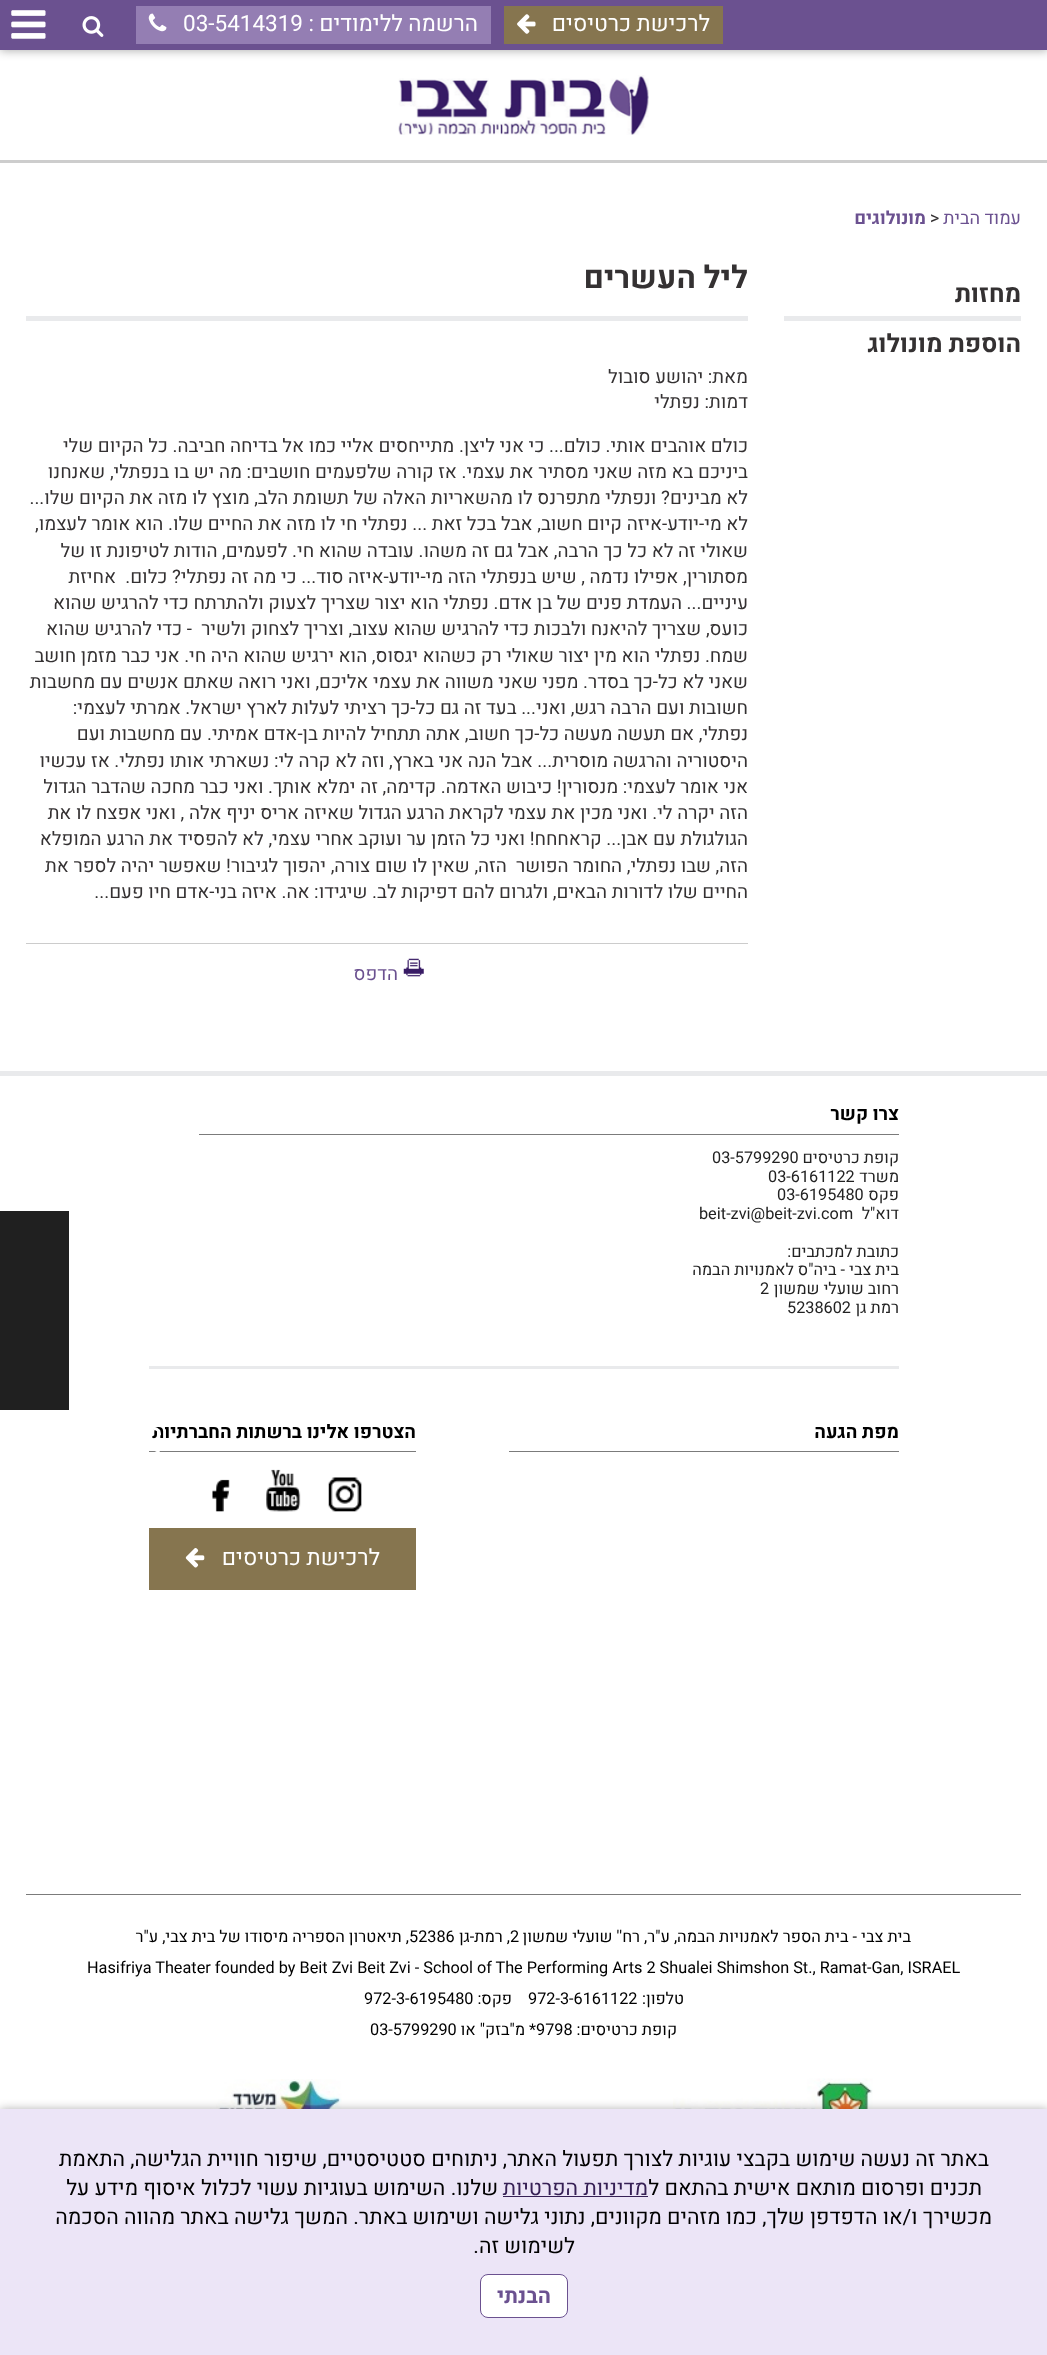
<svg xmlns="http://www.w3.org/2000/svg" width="1047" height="2355">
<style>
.a{font:22.5px Heebo;direction:rtl;fill:#fff}
.b{font:22.5px Heebo;fill:#fff}
.c{font:18px Heebo;direction:rtl;fill:#6b5190}
.d{font:18px Heebo;fill:#343132}
.e{font:bold 18px Heebo;direction:rtl;fill:#6b5190}
.f{font:bold 31.25px Heebo;direction:rtl;fill:#343132}
.g{font:18.75px Heebo;direction:rtl;fill:#343132}
.h{font:18.75px Heebo;direction:rtl;fill:#6b5190}
.i{font:bold 25px Heebo;direction:rtl;fill:#343132}
.j{font:bold 18.75px Heebo;direction:rtl;fill:#000}
.k{font:16.25px Heebo;direction:rtl;fill:#222}
.l{font:16.25px Heebo;fill:#222}
.m{font:16.25px Heebo;direction:rtl;fill:#000}
.n{font:16.25px Heebo;fill:#000}
.o{font:34px Heebo;direction:rtl;fill:#fff}
.p{font:21.25px Heebo;direction:rtl;fill:#000}
.q{font:21.25px Heebo;direction:rtl;fill:#362055}
.r{font:bold 21.25px Heebo;direction:rtl;fill:#6b5190}
</style>
<rect width="100%" height="100%" fill="#fff"/>
<path fill="#cdcdcd" d="M0 160h1047v3H0z"/>
<path fill="#0000004d" filter="blur(5px)" d="M0 1h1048v50H0z"/>
<path fill="#6b5190" d="M0 0h1047v50H0z"/>
<image href="1.png" x="11" y="10" width="35" height="29"/>
<image href="2.png" x="398" y="75" width="251" height="60"/>
<path fill="#86754f" d="M504 6h219v38H504z"/>
<image href="3.png" x="517" y="14" width="19" height="20"/>
<path fill="#947eb3" d="M136 6h355v38H136z"/>
<image href="4.png" x="148" y="13" width="19" height="19"/>
<image href="5.png" x="82" y="16" width="22" height="21"/>
<path fill="#e9eaec" d="M26 316h722v5H26z"/>
<path fill="#ccc" d="M26 943h722v1H26z"/>
<image href="6.png" x="403" y="958" width="21" height="19"/>
<path fill="#e9eaec" d="M784 316h237v5H784z"/>
<path fill="#e9eaec" d="M0 1071h1047v5H0z"/>
<path fill="#e9eaec" d="M149 1366h750v3H149z"/>
<path fill="#7b7b7b" d="M199 1134h700v1H199z"/>
<path fill="#7b7b7b" d="M509 1451h390v1H509z"/>
<path fill="#7b7b7b" d="M149 1451h267v1H149z"/>
<image href="7.png" x="328" y="1477" width="34" height="35"/>
<image href="8.png" x="266" y="1469" width="35" height="43"/>
<image href="9.png" x="212" y="1479" width="18" height="33"/>
<path fill="#86754f" d="M149 1528h267v62H149z"/>
<image href="10.png" x="185" y="1548" width="20" height="20"/>
<path fill="#7b7b7b" d="M26 1894h995v1H26z"/>
<image href="11.png" x="673" y="2078" width="200" height="31"/>
<image href="12.png" x="210" y="2079" width="132" height="30"/>
<path fill="#202020" d="M0 1211h69v199H0z"/>
<path fill="#0000004d" filter="blur(5px)" d="M0 2109h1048v246H0z"/>
<path fill="#ece5f7" d="M0 2109h1047v246H0z"/>
<path fill="#362055" d="M503 2196h145v1H503z"/>
<rect fill="#fff" stroke="#6b5190" x="480.5" y="2274.5" width="87" height="43" rx="7.5"/>
<text class="a" x="710" y="31">לרכישת כרטיסים</text>
<text class="a" x="478" y="31">הרשמה ללימודים</text>
<text class="b" x="183" y="31">03-5414319 :</text>
<text class="c" x="1021" y="224">עמוד הבית</text>
<text class="d" x="930" y="224">&gt;</text>
<text class="e" x="926" y="224">מונולוגים</text>
<text class="f" x="748" y="288">ליל העשרים</text>
<text class="g" x="748" y="383">מאת: יהושע סובול</text>
<text class="g" x="748" y="408">דמות: נפתלי</text>
<text class="g" x="748" y="452">כולם אוהבים אותי. כולם... כי אני ליצן. מתייחסים אליי כמו אל בדיחה חביבה. כל הקיום שלי</text>
<text class="g" x="748" y="478">ביניכם בא מזה שאני מסתיר את עצמי. אז קורה שלפעמים חושבים: מה יש בו בנפתלי, שאנחנו</text>
<text class="g" x="748" y="504">לא מבינים? ונפתלי מתפרנס לו מהשאריות האלה של תשומת הלב, מוצץ לו מזה את הקיום שלו...</text>
<text class="g" x="748" y="530">לא מי-יודע-איזה קיום חשוב, אבל בכל זאת ... נפתלי חי לו מזה את החיים שלו. הוא אומר לעצמו,</text>
<text class="g" x="748" y="557">שאולי זה לא כל כך הרבה, אבל גם זה משהו. עובדה שהוא חי. לפעמים, הודות לטיפונת זו של</text>
<text class="g" xml:space="preserve" x="748" y="583">מסתורין, אפילו נדמה , שיש בנפתלי הזה מי-יודע-איזה סוד... כי מה זה נפתלי? כלום.  אחיזת</text>
<text class="g" x="748" y="609">עיניים... העמדת פנים של בן אדם. נפתלי הוא יצור שצריך לצעוק ולהתרתח כדי להרגיש שהוא</text>
<text class="g" xml:space="preserve" x="748" y="635">כועס, שצריך להיאנח ולבכות כדי להרגיש שהוא עצוב, וצריך לצחוק ולשיר  - כדי להרגיש שהוא</text>
<text class="g" x="748" y="662">שמח. נפתלי הוא מין יצור שאולי רק כשהוא יגסוס, הוא ירגיש שהוא היה חי. אני כבר מזמן חושב</text>
<text class="g" x="748" y="688">שאני לא כל-כך בסדר. מפני שאני משווה את עצמי אליכם, ואני רואה שאתם אנשים עם מחשבות</text>
<text class="g" x="748" y="714">חשובות ועם הרבה רגש, ואני... בעד זה גם כל-כך רציתי לעלות לארץ ישראל. אמרתי לעצמי:</text>
<text class="g" x="748" y="740">נפתלי, אם תעשה מעשה כל-כך חשוב, אתה תתחיל להיות בן-אדם אמיתי. עם מחשבות ועם</text>
<text class="g" x="748" y="767">היסטוריה והרגשה מוסרית... אבל הנה אני בארץ, וזה לא קרה לי: נשארתי אותו נפתלי. אז עכשיו</text>
<text class="g" x="748" y="793">אני אומר לעצמי: מנסורין! כיבוש האדמה. קדימה, זה ימלא אותך. ואני כבר מחכה שהדבר הגדול</text>
<text class="g" x="748" y="819">הזה יקרה לי. ואני מכין את עצמי לקראת הרגע הגדול שאיזה אריס יניף אלה , ואני אפצח לו את</text>
<text class="g" x="748" y="845">הגולגולת עם אבן... קראחחח! ואני כל הזמן ער ועוקב אחרי עצמי, לא להפסיד את הרגע המופלא</text>
<text class="g" xml:space="preserve" x="748" y="872">הזה, שבו נפתלי, החומר הפושר  הזה, שאין לו שום צורה, יהפוך לגיבור! שאפשר יהיה לספר את</text>
<text class="g" x="748" y="898">החיים שלו לדורות הבאים, ולגרום להם דפיקות לב. שיגידו: אה. איזה בני-אדם חיו פעם...</text>
<text class="h" x="398" y="980">הדפס</text>
<text class="i" x="1021" y="302">מחזות</text>
<text class="i" x="1021" y="352">הוספת מונולוג</text>
<text class="j" x="899" y="1120">צרו קשר</text>
<text class="k" x="899" y="1163">קופת כרטיסים</text>
<text class="l" x="712" y="1163">03-5799290</text>
<text class="k" x="899" y="1182">משרד</text>
<text class="l" x="768" y="1182">03-6161122</text>
<text class="k" x="899" y="1200">פקס</text>
<text class="l" x="777" y="1200">03-6195480</text>
<text class="k" x="899" y="1219">דוא"ל</text>
<text class="l" x="699" y="1219">beit-zvi@beit-zvi.com</text>
<text class="k" x="899" y="1257">כתובת למכתבים:</text>
<text class="k" x="899" y="1275">בית צבי - ביה"ס לאמנויות הבמה</text>
<text class="k" x="899" y="1294">רחוב שועלי שמשון</text>
<text class="l" x="760" y="1294">2</text>
<text class="k" x="899" y="1313">רמת גן</text>
<text class="l" x="787" y="1313">5238602</text>
<text class="j" x="899" y="1438">מפת הגעה</text>
<text class="j" x="416" y="1438">הצטרפו אלינו ברשתות החברתיות</text>
<text class="a" x="380" y="1565">לרכישת כרטיסים</text>
<text class="m" x="911" y="1942">בית צבי - בית הספר לאמנויות הבמה, ע"ר, רח'' שועלי שמשון</text>
<text class="n" x="510" y="1942">2</text>
<text class="m" x="510" y="1942">, רמת-גן</text>
<text class="n" x="409" y="1942">52386</text>
<text class="m" x="409" y="1942">, תיאטרון הספריה מיסודו של בית צבי, ע"ר</text>
<text class="n" x="87" y="1973">Hasifriya Theater founded by Beit Zvi Beit Zvi - School of The Performing Arts 2 Shualei Shimshon St., Ramat-Gan, ISRAEL</text>
<text class="m" x="684" y="2004">טלפון:</text>
<text class="n" x="528" y="2004">972-3-6161122</text>
<text class="m" x="512" y="2004">פקס:</text>
<text class="n" x="364" y="2004">972-3-6195480</text>
<text class="m" x="677" y="2035">קופת כרטיסים:</text>
<text class="n" x="536" y="2035">9798</text>
<text class="m" x="536" y="2035">* מ"בזק" או</text>
<text class="n" x="370" y="2035">03-5799290</text>
<text class="o" x="161" y="1370" transform="rotate(-90 161 1370)">צור קשר</text>
<text class="p" x="989" y="2166">באתר זה נעשה שימוש בקבצי עוגיות לצורך תפעול האתר, ניתוחים סטטיסטיים, שיפור חוויית הגלישה, התאמת</text>
<text class="p" x="982" y="2195">תכנים ופרסום מותאם אישית בהתאם ל</text>
<text class="q" x="648" y="2195">מדיניות הפרטיות</text>
<text class="p" x="498" y="2195">שלנו. השימוש בעוגיות עשוי לכלול איסוף מידע על</text>
<text class="p" x="992" y="2224">מכשירך ו/או הדפדפן שלך, כמו מזהים מקוונים, נתוני גלישה ושימוש באתר. המשך</text>
<text class="p" x="289" y="2224">גלישה באתר מהווה הסכמה</text>
<text class="p" x="575" y="2253">לשימוש זה.</text>
<text class="r" x="551" y="2303">הבנתי</text>
</svg>
